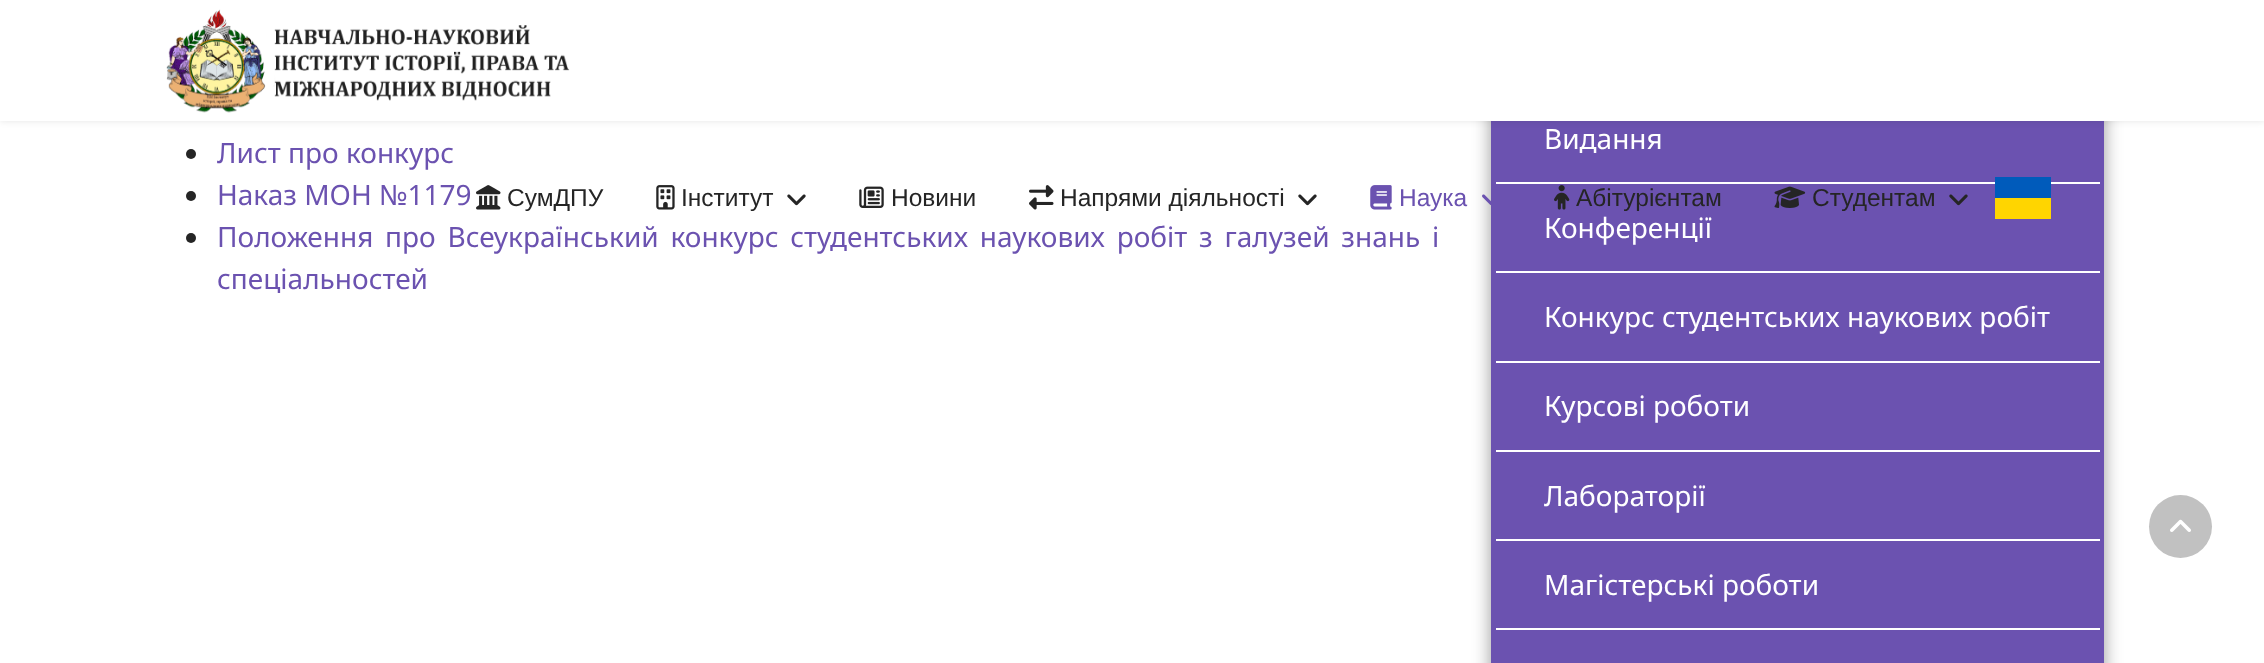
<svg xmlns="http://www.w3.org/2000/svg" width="2264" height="663">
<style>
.a{font:28px Noto Sans;fill:#6b52b0}
.b{font:28px Noto Sans;fill:#fff}
.c{font:24.5px Liberation Sans;fill:#252525}
.d{font:24.5px Liberation Sans;fill:#6b52b0}
</style>
<rect width="100%" height="100%" fill="#fff"/>
<circle fill="#252525" cx="191" cy="154" r="5"/>
<circle fill="#252525" cx="191" cy="196" r="5"/>
<circle fill="#252525" cx="191" cy="238" r="5"/>
<rect fill="#00000066" filter="blur(9px)" x="1491" y="5" width="613" height="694" rx="9"/>
<path fill="#6b52b0" d="M1491 121h613v542H1491z"/>
<path fill="#fff" d="M1496 182h604v2H1496z"/>
<path fill="#fff" d="M1496 271h604v2H1496z"/>
<path fill="#fff" d="M1496 361h604v2H1496z"/>
<path fill="#fff" d="M1496 450h604v2H1496z"/>
<path fill="#fff" d="M1496 539h604v2H1496z"/>
<path fill="#fff" d="M1496 628h604v2H1496z"/>
<path fill="#0000001a" filter="blur(3.5px)" d="M0 0h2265v121H0z"/>
<path fill="#fff" d="M0 0h2264v121H0z"/>
<image href="1.png" x="166" y="9" width="404" height="104"/>
<image href="2.png" x="476" y="185" width="25" height="25"/>
<image href="3.png" x="656" y="185" width="19" height="25"/>
<image href="4.png" x="787" y="194" width="19" height="12"/>
<image href="5.png" x="859" y="186" width="25" height="22"/>
<image href="6.png" x="1029" y="185" width="25" height="25"/>
<image href="4.png" x="1298" y="194" width="19" height="12"/>
<image href="7.png" x="1370" y="185" width="22" height="25"/>
<image href="8.png" x="1482" y="194" width="9" height="12"/>
<image href="9.png" x="1554" y="185" width="16" height="25"/>
<image href="10.png" x="1774" y="186" width="32" height="22"/>
<image href="11.png" x="1949" y="194" width="19" height="12"/>
<path fill="#ffd500" d="M1995 198h56v21H1995z"/>
<path fill="#005bbb" d="M1995 177h56v21H1995z"/>
<circle fill="#c1c1c1" cx="2180.5" cy="526.5" r="31.5"/>
<image href="12.png" x="2170" y="519" width="21" height="13"/>
<text class="a" x="217" y="163">Лист про конкурс</text>
<text class="a" x="217" y="205">Наказ МОН №1179</text>
<text class="a" x="217" y="247" word-spacing="4.5">Положення про Всеукраїнський конкурс студентських наукових робіт з галузей знань і</text>
<text class="a" x="217" y="289">спеціальностей</text>
<text class="b" x="1544" y="149">Видання</text>
<text class="b" x="1544" y="238">Конференції</text>
<text class="b" x="1544" y="327">Конкурс студентських наукових робіт</text>
<text class="b" x="1544" y="416">Курсові роботи</text>
<text class="b" x="1544" y="506">Лабораторії</text>
<text class="b" x="1544" y="595">Магістерські роботи</text>
<text class="c" x="507" y="206">СумДПУ</text>
<text class="c" x="681" y="206">Інститут</text>
<text class="c" x="891" y="206">Новини</text>
<text class="c" x="1060" y="206">Напрями діяльності</text>
<text class="d" x="1399" y="206">Наука</text>
<text class="c" x="1576" y="206">Абітурієнтам</text>
<text class="c" x="1812" y="206">Студентам</text>
</svg>
